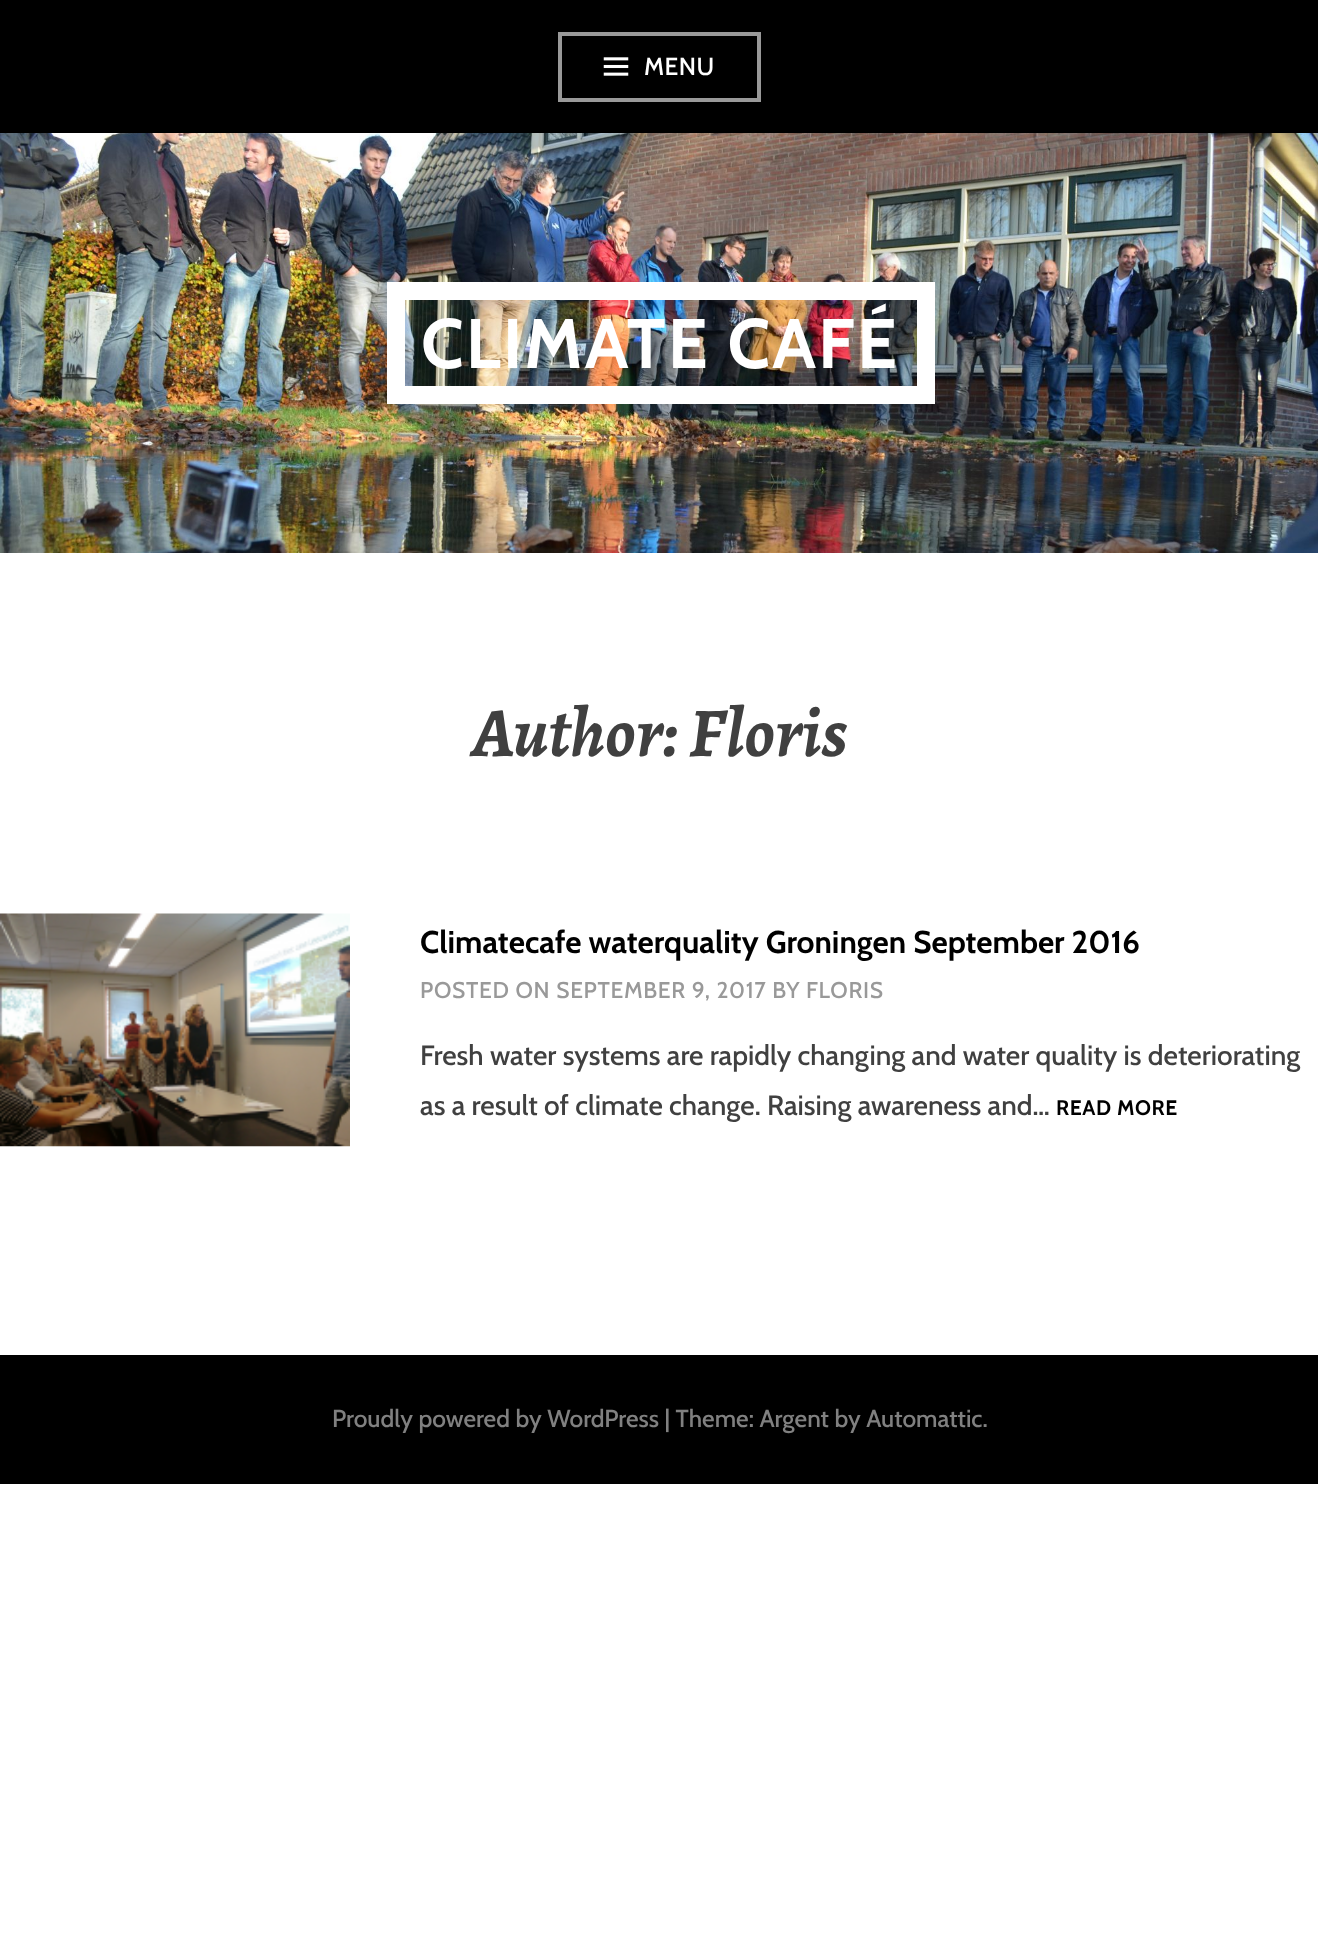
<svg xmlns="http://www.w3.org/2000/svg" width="1318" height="1939">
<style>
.a{font:500 24.5px Cabin;letter-spacing:0.5px;fill:#fff}
.b{font:bold 70px Cabin;letter-spacing:2.1px;fill:#fff}
.c{font:italic bold 70px Alegreya;fill:#404040}
.d{font:bold 31.5px Cabin;fill:#000}
.e{font:500 22.75px Cabin;letter-spacing:0.7px;fill:#999}
.f{font:500 28px Cabin;fill:#404040}
.g{font:bold 21px Cabin;letter-spacing:0.6px;fill:#000}
.h{font:500 24.5px Cabin;fill:#808080}
</style>
<rect width="100%" height="100%" fill="#fff"/>
<path fill="#000" d="M0 0h1318v133H0z"/>
<path fill="none" stroke="#999" stroke-width="4" d="M560 34h199v66H560z"/>
<image href="1.png" x="603" y="57" width="26" height="19"/>
<image href="2.png" x="0" y="133" width="1318" height="420"/>
<path fill="none" stroke="#fff" stroke-width="18" d="M396 291h530v104H396z"/>
<image href="3.png" x="0" y="913" width="350" height="234"/>
<path fill="#000" d="M0 1355h1318v129H0z"/>
<text class="a" x="644" y="75">MENU</text>
<text class="b" x="421" y="368">CLIMATE CAFÉ</text>
<text class="c" x="472" y="756">Author: Floris</text>
<text class="d" x="420" y="953">Climatecafe waterquality Groningen September 2016</text>
<text class="e" x="420" y="998">POSTED ON SEPTEMBER 9, 2017 BY FLORIS</text>
<text class="f" x="420" y="1065">Fresh water systems are rapidly changing and water quality is deteriorating</text>
<text class="f" x="420" y="1115">as a result of climate change. Raising awareness and…</text>
<text class="g" x="1056" y="1115">READ MORE</text>
<text class="h" x="332" y="1427">Proudly powered by WordPress | Theme: Argent by Automattic.</text>
</svg>
